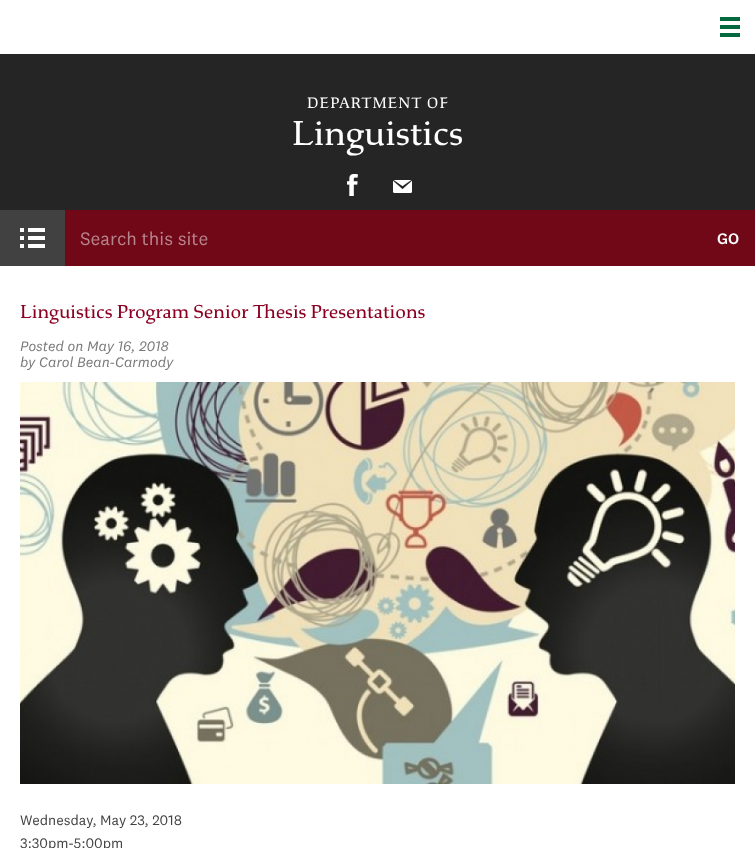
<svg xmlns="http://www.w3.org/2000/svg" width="755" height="848">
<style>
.a{font:16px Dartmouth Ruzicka;letter-spacing:1px;fill:#fff}
.b{font:37px Dartmouth Ruzicka;fill:#fff}
.c{font:18.75px 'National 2';fill:#b8848c}
.d{font:500 16px 'National 2';fill:#fff}
.e{font:20px Dartmouth Ruzicka;fill:#8b0022}
.f{font:14.4px 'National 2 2';fill:#797979}
.g{font:14.4px 'National 2';fill:#424242}
</style>
<rect width="100%" height="100%" fill="#fff"/>
<image href="1.png" x="720" y="17" width="20" height="20"/>
<path fill="#252525" d="M0 54h755v156H0z"/>
<image href="2.png" x="347" y="174" width="11" height="22"/>
<image href="3.png" x="393" y="180" width="19" height="13"/>
<path fill="#414141" d="M0 210h65v56H0z"/>
<image href="4.png" x="20" y="228" width="25" height="20"/>
<path fill="#700818" d="M65 210h690v56H65z"/>
<image href="5.png" x="20" y="382" width="715" height="402"/>
<text class="a" x="307" y="108">DEPARTMENT OF</text>
<text class="b" x="292" y="145">Linguistics</text>
<text class="c" x="80" y="245">Search this site</text>
<text class="d" x="717" y="244">GO</text>
<text class="e" x="20" y="318">Linguistics Program Senior Thesis Presentations</text>
<text class="f" x="20" y="351">Posted on May 16, 2018</text>
<text class="f" x="20" y="367">by Carol Bean-Carmody</text>
<text class="g" x="20" y="825">Wednesday, May 23, 2018</text>
<text class="g" x="20" y="848">3:30pm-5:00pm</text>
</svg>
